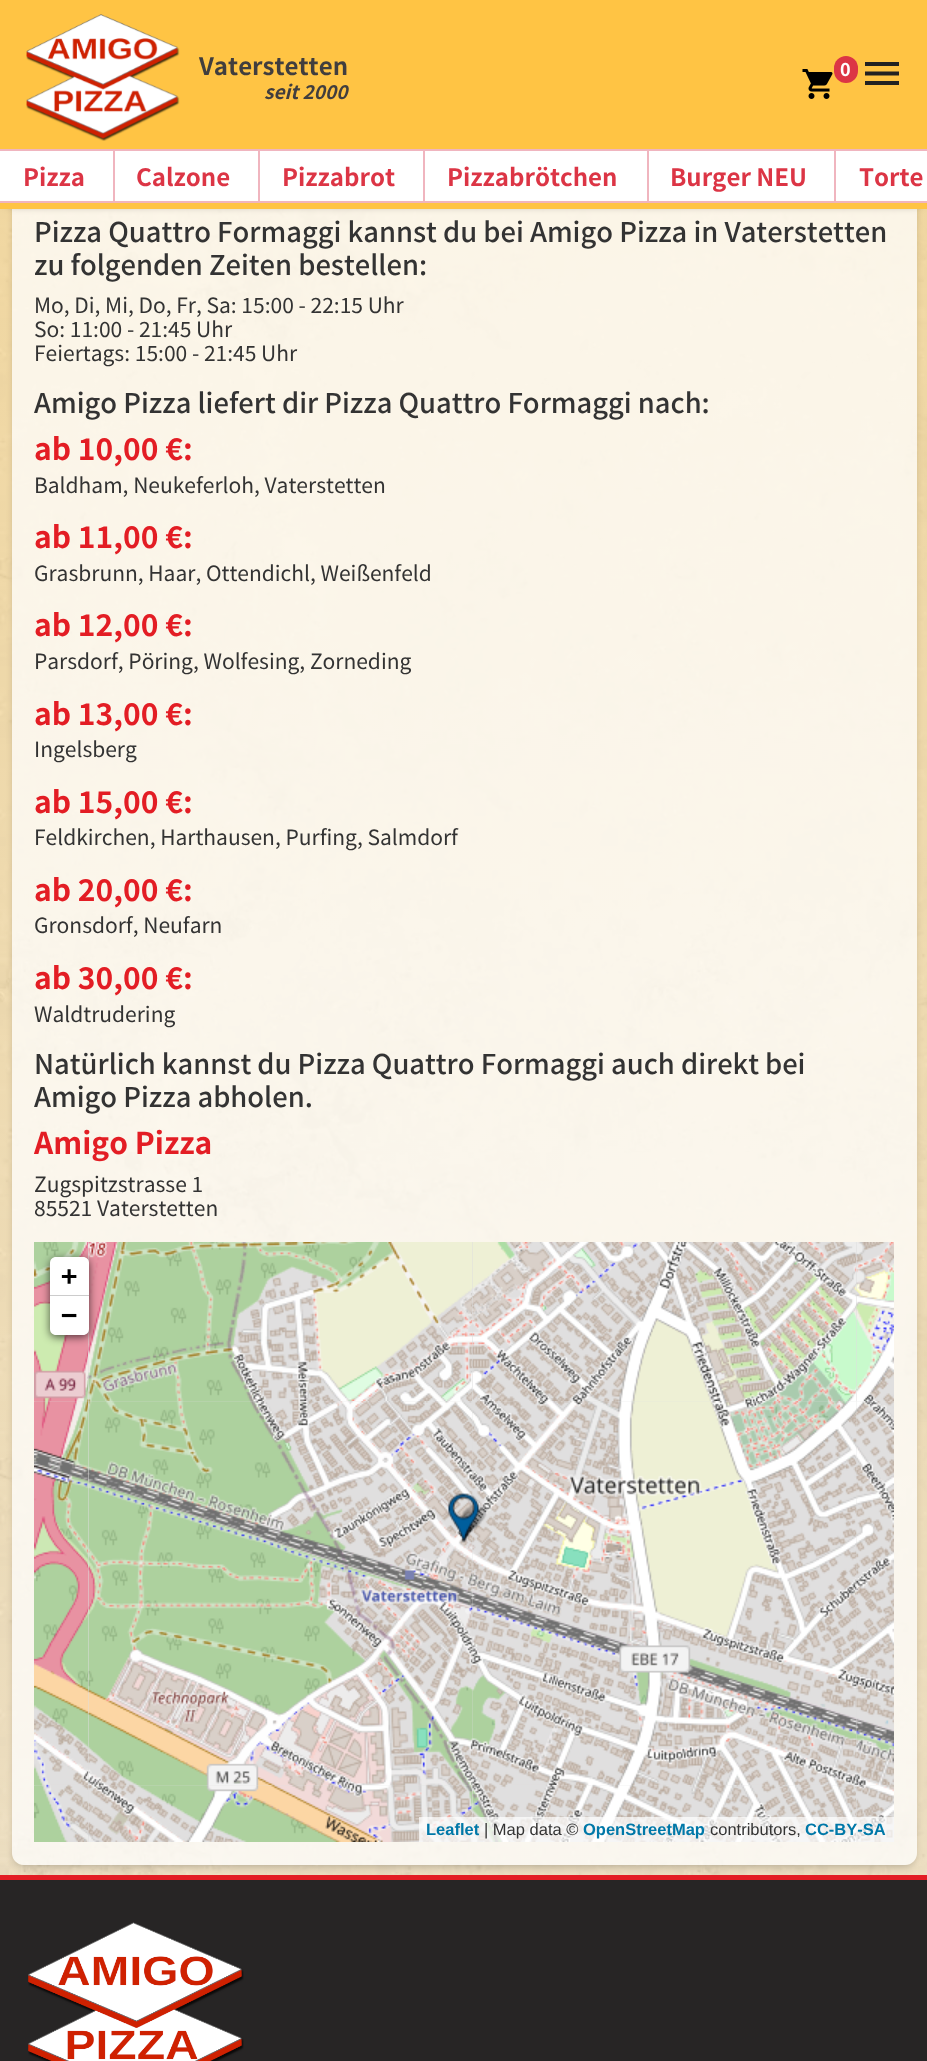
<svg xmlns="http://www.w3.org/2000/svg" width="927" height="2061">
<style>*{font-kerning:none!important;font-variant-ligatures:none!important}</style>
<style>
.a{font:bold 24px Noto Sans JP;fill:#413e3e}
.b{font:italic bold 19px Noto Sans JP;fill:#413e3e}
.c{font:bold 18px Noto Sans JP;fill:#fff}
.d{font:bold 24px Noto Sans JP;fill:#dc3545}
.e{font:500 27.3px Noto Sans JP;fill:#333}
.f{font:21px Noto Sans JP;fill:#333}
.g{font:bold 30px Noto Sans JP;fill:#e31d24}
.h{font:bold 27px DejaVu Sans Mono;fill:#000}
.i{font:bold 16.5px Liberation Sans;fill:#0078a8}
.j{font:16.5px Liberation Sans;fill:#333}
</style>
<defs>
<clipPath id="clip1"><path d="M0 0h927v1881h-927zm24-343h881c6.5 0 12 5.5 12 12v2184c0 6.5-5.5 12-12 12h-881c-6.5 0-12-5.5-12-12v-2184c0-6.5 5.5-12 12-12z" clip-rule="evenodd"/></clipPath>
</defs>
<rect width="100%" height="100%" fill="#fff"/>
<image href="1.png" x="0" y="209" width="927" height="1666"/>
<path fill="#272525" d="M0 1880h927v181H0z"/>
<path fill="#e31d24" d="M0 1875h927v5H0z"/>
<g clip-path="url(#clip1)">
<rect fill="#00000040" filter="blur(4.5px)" x="15" y="-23" width="899" height="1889" rx="9"/>
</g>
<rect fill="#ffffffbf" x="12" y="-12" width="905" height="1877" rx="12"/>
<path fill="#000" filter="blur(6px)" d="M8 8h912v193H8z"/>
<path fill="#ffc444" d="M0 0h927v209H0z"/>
<image href="2.png" x="26" y="14" width="154" height="127"/>
<image href="3.png" x="802" y="69" width="31" height="30"/>
<rect fill="#dc3545" x="834" y="56" width="24" height="27" rx="12"/>
<path fill="#222" d="M865 85h34v-4h-34zm0-9.5h34v-4h-34zm0-13.5v4h34v-4z"/>
<path fill="#fff" d="M0 151h927v50H0z"/>
<path fill="#f0b5bf" d="M0 149h927v2H0z"/>
<path fill="#f0b5bf" d="M0 201h927v2H0z"/>
<path fill="#f0b5bf" d="M113 150h2v51H113z"/>
<path fill="#f0b5bf" d="M258 150h2v51H258z"/>
<path fill="#f0b5bf" d="M423 150h2v51H423z"/>
<path fill="#f0b5bf" d="M647 150h2v51H647z"/>
<path fill="#f0b5bf" d="M834 150h2v51H834z"/>
<path fill="#ddd" d="M35 1242h859v600H35z"/>
<image href="4.png" x="34" y="1242" width="54" height="159"/>
<image href="9.png" x="88" y="1400" width="385" height="385"/>
<image href="5.png" x="88" y="1242" width="384" height="159"/>
<image href="10.png" x="472" y="1400" width="385" height="385"/>
<image href="6.png" x="472" y="1242" width="384" height="159"/>
<image href="11.png" x="856" y="1400" width="38" height="385"/>
<image href="7.png" x="856" y="1242" width="38" height="159"/>
<image href="8.png" x="34" y="1401" width="54" height="384"/>
<image href="12.png" x="34" y="1784" width="54" height="58"/>
<image href="13.png" x="88" y="1784" width="384" height="58"/>
<image href="14.png" x="472" y="1784" width="384" height="58"/>
<image href="15.png" x="856" y="1784" width="38" height="58"/>
<image href="16.png" x="448" y="1493" width="40" height="50"/>
<rect fill="#000000a6" filter="blur(4px)" x="50" y="1259" width="39" height="78" rx="6"/>
<path fill="#fff" d="M56 1257h27c3.5 0 6 2.5 6 6v33h-39v-33c0-3.5 2.5-6 6-6z"/>
<path fill="#ccc" d="M50 1295h39v1H50z"/>
<path fill="#fff" d="M50 1296h39v33c0 3.5-2.5 6-6 6h-27c-3.5 0-6-2.5-6-6z"/>
<path fill="#ffffffb3" d="M419 1817h475v25H419z"/>
<image href="17.png" x="28" y="1922" width="216" height="139"/>
<text class="a" x="199" y="75">Vaterstetten</text>
<text class="b" x="264" y="99">seit 2000</text>
<text class="c" x="840" y="76">0</text>
<text class="d" x="23" y="186">Pizza</text>
<text class="d" x="136" y="186">Calzone</text>
<text class="d" x="282" y="186">Pizzabrot</text>
<text class="d" x="447" y="186">Pizzabrötchen</text>
<text class="d" x="670" y="186">Burger NEU</text>
<text class="d" x="859" y="186">Torte</text>
<text class="e" x="34" y="242">Pizza Quattro Formaggi kannst du bei Amigo Pizza in Vaterstetten</text>
<text class="e" x="34" y="275">zu folgenden Zeiten bestellen:</text>
<text class="f" x="34" y="313">Mo, Di, Mi, Do, Fr, Sa: 15:00 - 22:15 Uhr</text>
<text class="f" x="34" y="337">So: 11:00 - 21:45 Uhr</text>
<text class="f" x="34" y="361">Feiertags: 15:00 - 21:45 Uhr</text>
<text class="e" x="34" y="413">Amigo Pizza liefert dir Pizza Quattro Formaggi nach:</text>
<text class="g" x="34" y="460">ab 10,00 €:</text>
<text class="f" x="34" y="493">Baldham, Neukeferloh, Vaterstetten</text>
<text class="g" x="34" y="548">ab 11,00 €:</text>
<text class="f" x="34" y="581">Grasbrunn, Haar, Ottendichl, Weißenfeld</text>
<text class="g" x="34" y="636">ab 12,00 €:</text>
<text class="f" x="34" y="669">Parsdorf, Pöring, Wolfesing, Zorneding</text>
<text class="g" x="34" y="725">ab 13,00 €:</text>
<text class="f" x="34" y="757">Ingelsberg</text>
<text class="g" x="34" y="813">ab 15,00 €:</text>
<text class="f" x="34" y="845">Feldkirchen, Harthausen, Purfing, Salmdorf</text>
<text class="g" x="34" y="901">ab 20,00 €:</text>
<text class="f" x="34" y="933">Gronsdorf, Neufarn</text>
<text class="g" x="34" y="989">ab 30,00 €:</text>
<text class="f" x="34" y="1022">Waldtrudering</text>
<text class="e" x="34" y="1074">Natürlich kannst du Pizza Quattro Formaggi auch direkt</text>
<text class="e" x="765" y="1074">bei</text>
<text class="e" x="34" y="1107">Amigo Pizza abholen.</text>
<text class="g" x="34" y="1154">Amigo Pizza</text>
<text class="f" x="34" y="1192">Zugspitzstrasse 1</text>
<text class="f" x="34" y="1216">85521 Vaterstetten</text>
<text class="h" x="61" y="1285">+</text>
<text class="h" x="61" y="1324">−</text>
<text class="i" x="426" y="1835">Leaflet</text>
<text class="j" x="484" y="1835">| Map data ©</text>
<text class="i" x="583" y="1835">OpenStreetMap</text>
<text class="j" x="710" y="1835">contributors,</text>
<text class="i" x="805" y="1835">CC-BY-SA</text>
</svg>
